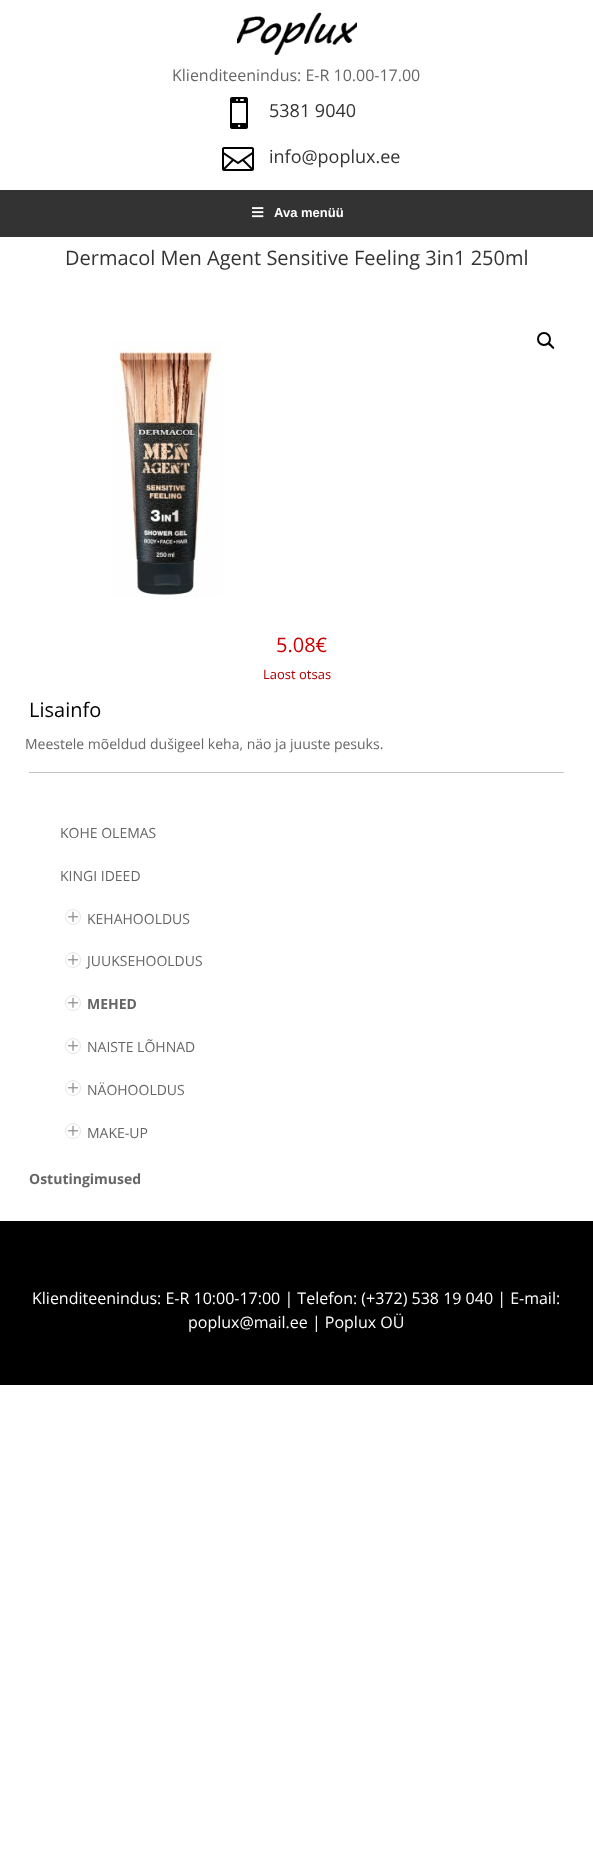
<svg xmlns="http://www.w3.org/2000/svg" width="593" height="1867">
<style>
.a{font:16px Open Sans;fill:#666}
.b{font:18px Open Sans;fill:#333}
.c{font:bold 13px Liberation Sans;fill:#fff}
.d{font:20px Open Sans;fill:#333}
.e{font:20px Open Sans;fill:#c00}
.f{font:13px Open Sans;fill:#a00}
.g{font:20px Open Sans;fill:#000}
.h{font:14px Open Sans;fill:#666}
.i{font:bold 14px Open Sans;fill:#666}
.j{font:16px Open Sans;fill:#fff}
</style>
<rect width="100%" height="100%" fill="#fff"/>
<image href="1.png" x="237" y="12" width="120" height="43"/>
<image href="2.png" x="230" y="97" width="18" height="32"/>
<image href="3.png" x="222" y="147" width="32" height="24"/>
<path fill="#333" d="M0 190h593v47H0z"/>
<image href="4.png" x="252" y="207" width="12" height="11"/>
<image href="5.png" x="111" y="341" width="112" height="256"/>
<circle fill="none" stroke="#000" stroke-width="2" cx="544" cy="339" r="6"/>
<path fill="#000" d="M548.5 343c1-1 3 1.5 3.5 2c.5 1 3 2.5 2 3.5c-1 1.5-3-1.5-3.5-2c-.5-.5-3.5-2-2-3.5z"/>
<path fill="#c4c4c4" d="M29 772h535v1H29z"/>
<circle fill="none" stroke="#e6e6e6" cx="73" cy="917" r="7.5"/>
<image href="6.png" x="67" y="911" width="12" height="11"/>
<circle fill="none" stroke="#e6e6e6" cx="73" cy="960" r="7.5"/>
<image href="6.png" x="67" y="954" width="12" height="11"/>
<circle fill="none" stroke="#e6e6e6" cx="73" cy="1003" r="7.5"/>
<image href="6.png" x="67" y="997" width="12" height="11"/>
<circle fill="none" stroke="#e6e6e6" cx="73" cy="1046" r="7.5"/>
<image href="6.png" x="67" y="1040" width="12" height="11"/>
<circle fill="none" stroke="#e6e6e6" cx="73" cy="1088" r="7.5"/>
<image href="6.png" x="67" y="1082" width="12" height="11"/>
<circle fill="none" stroke="#e6e6e6" cx="73" cy="1131" r="7.5"/>
<image href="6.png" x="67" y="1125" width="12" height="11"/>
<path fill="#000" d="M0 1221h593v164H0z"/>
<text class="a" x="172" y="81">Klienditeenindus: E-R 10.00-17.00</text>
<text class="b" x="269" y="117">5381 9040</text>
<text class="b" x="269" y="163">info@poplux.ee</text>
<text class="c" x="274" y="217">Ava menüü</text>
<text class="d" x="65" y="265">Dermacol Men Agent Sensitive Feeling 3in1 250ml</text>
<text class="e" x="276" y="652">5.08€</text>
<text class="f" x="263" y="679">Laost otsas</text>
<text class="g" x="29" y="717">Lisainfo</text>
<text class="h" x="25" y="749">Meestele mõeldud dušigeel keha, näo ja juuste pesuks.</text>
<text class="h" x="60" y="838">KOHE OLEMAS</text>
<text class="h" x="60" y="881">KINGI IDEED</text>
<text class="h" x="87" y="924">KEHAHOOLDUS</text>
<text class="h" x="87" y="966">JUUKSEHOOLDUS</text>
<text class="i" x="87" y="1009">MEHED</text>
<text class="h" x="87" y="1052">NAISTE LÕHNAD</text>
<text class="h" x="87" y="1095">NÄOHOOLDUS</text>
<text class="h" x="87" y="1138">MAKE-UP</text>
<text class="i" x="29" y="1184">Ostutingimused</text>
<text class="j" x="32" y="1304">Klienditeenindus: E-R 10:00-17:00 | Telefon: (+372) 538 19 040 | E-mail:</text>
<text class="j" x="188" y="1328">poplux@mail.ee | Poplux OÜ</text>
</svg>
